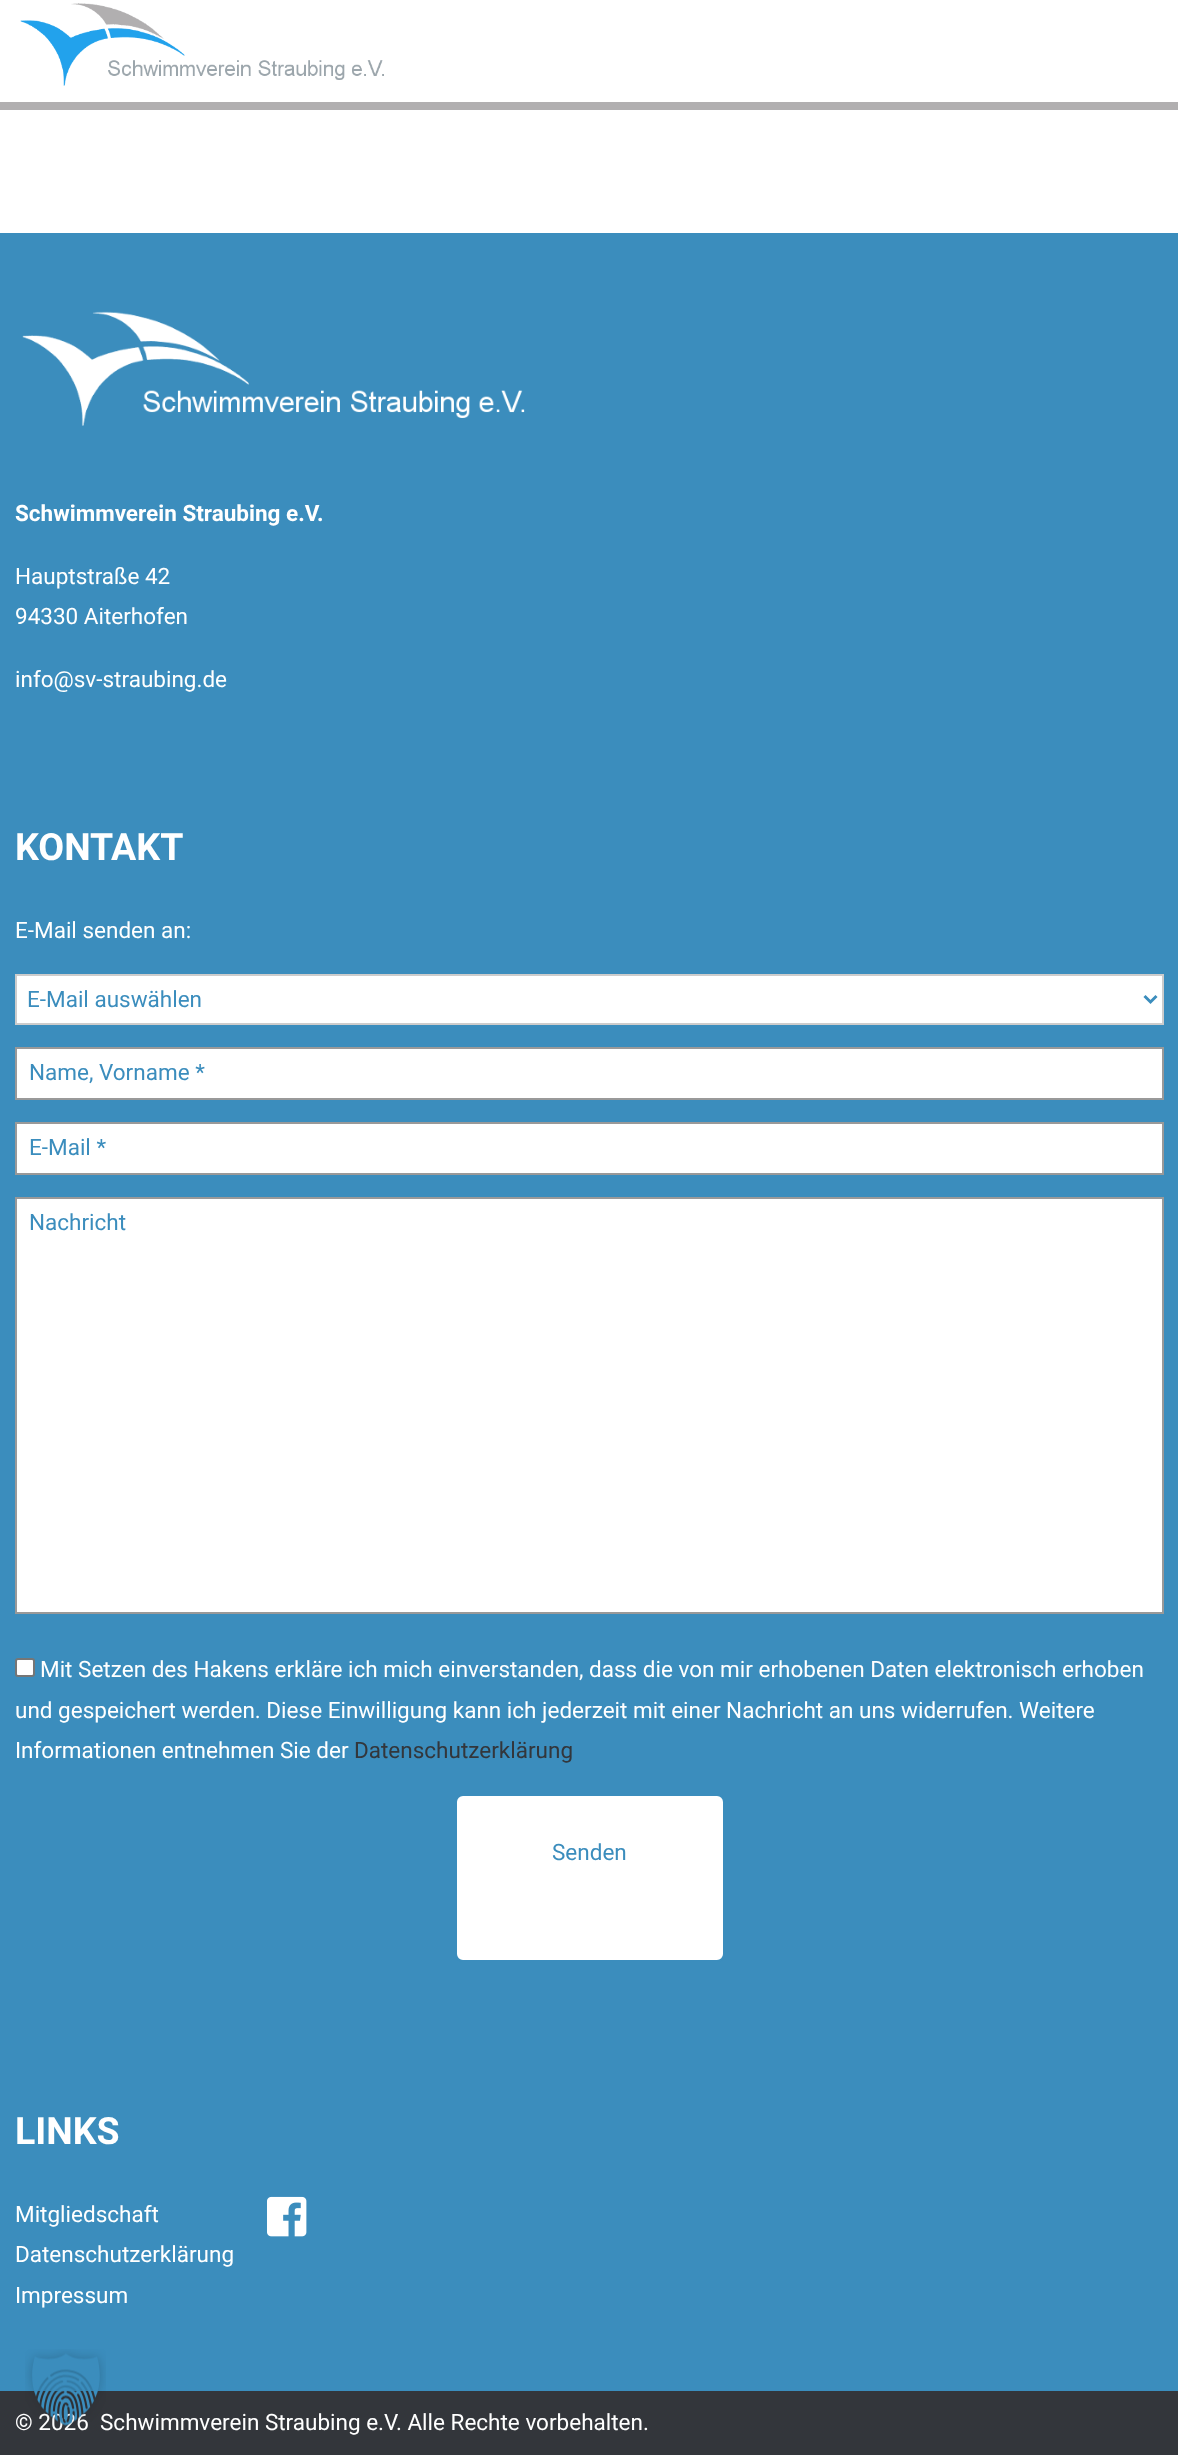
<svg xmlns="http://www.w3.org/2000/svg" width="1178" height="2455">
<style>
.a{font:bold 22.5px Roboto;fill:#fff}
.b{font:22.5px Roboto;fill:#fff}
.c{font:bold 37.5px Roboto;fill:#fff}
.d{font:22.5px Roboto;fill:#3b8dbd}
.e{font:22.5px Roboto;fill:#33363b}
</style>
<rect width="100%" height="100%" fill="#fff"/>
<image href="1.png" x="20" y="3" width="364" height="83"/>
<path fill="#b1afb0" d="M0 102h1178v8H0z"/>
<path fill="#3b8dbd" d="M0 233h1178v2158H0z"/>
<image href="2.png" x="22" y="311" width="503" height="115"/>
<path fill="#fff" stroke="#ccc" stroke-width="2" d="M16 975h1147v49H16z"/>
<path fill="none" stroke="#3b8dbd" stroke-width="3" d="M1144.5 996l6 6l6-6"/>
<path fill="#fff" stroke="#999" stroke-width="2" d="M16 1048h1147v51H16z"/>
<path fill="#fff" stroke="#999" stroke-width="2" d="M16 1123h1147v51H16z"/>
<path fill="#fff" stroke="#999" stroke-width="2" d="M16 1198h1147v415H16z"/>
<rect fill="#fff" stroke="#767676" stroke-width="2" x="16" y="1659" width="18" height="17" rx="2"/>
<rect fill="#fff" stroke="#3b8dbd" stroke-width="2" x="456" y="1795" width="268" height="166" rx="7"/>
<image href="3.png" x="267" y="2196" width="40" height="41"/>
<path fill="#33363b" d="M0 2391h1178v64H0z"/>
<text class="a" x="15" y="521">Schwimmverein Straubing e.V.</text>
<text class="b" x="15" y="584">Hauptstraße 42</text>
<text class="b" x="15" y="624">94330 Aiterhofen</text>
<text class="b" x="15" y="687">info@sv-straubing.de</text>
<text class="c" x="15" y="860">KONTAKT</text>
<text class="b" x="15" y="938">E-Mail senden an:</text>
<text class="d" x="27" y="1007">E-Mail auswählen</text>
<text class="d" x="29" y="1080">Name, Vorname *</text>
<text class="d" x="29" y="1155">E-Mail *</text>
<text class="d" x="29" y="1230">Nachricht</text>
<text class="b" x="40" y="1677">Mit Setzen des Hakens erkläre ich mich einverstanden, dass die von mir erhobenen Daten elektronisch erhoben</text>
<text class="b" x="15" y="1718">und gespeichert werden. Diese Einwilligung kann ich jederzeit mit einer Nachricht an uns widerrufen. Weitere</text>
<text class="b" x="15" y="1758">Informationen entnehmen Sie der</text>
<text class="e" x="354" y="1758">Datenschutzerklärung</text>
<text class="d" x="552" y="1860">Senden</text>
<text class="c" x="15" y="2144">LINKS</text>
<text class="b" x="15" y="2222">Mitgliedschaft</text>
<text class="b" x="15" y="2262">Datenschutzerklärung</text>
<text class="b" x="15" y="2303">Impressum</text>
<text class="b" x="15" y="2430">© 2026</text>
<text class="b" x="100" y="2430">Schwimmverein Straubing e.V. Alle Rechte vorbehalten.</text>
<image href="4.png" x="25" y="2349" width="81" height="80"/>
</svg>
